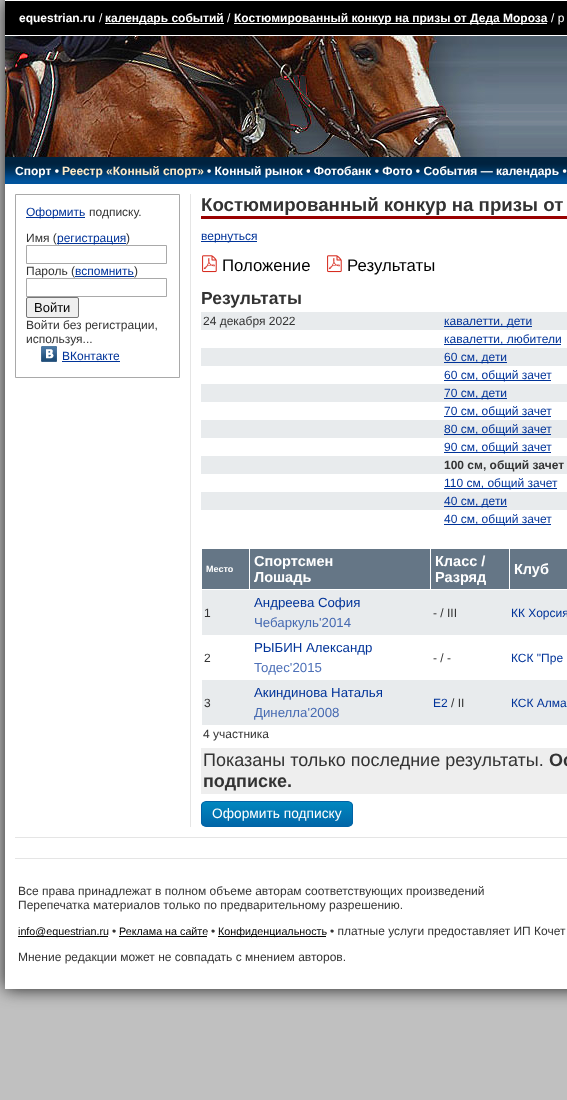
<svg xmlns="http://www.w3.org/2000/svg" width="567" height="1100">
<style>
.a{font:bold 12px Liberation Sans;fill:#fff}
.b{font:12px Liberation Sans;fill:#fff}
.c{font:bold 12px Liberation Sans;fill:#feeac7}
.d{font:12px Liberation Sans;fill:#039}
.e{font:12px Liberation Sans;fill:#333}
.f{font:13px Liberation Sans;fill:#000}
.g{font:bold 18.7px Liberation Sans;fill:#333}
.h{font:16.75px Liberation Sans;fill:#000}
.i{font:bold 17.5px Liberation Sans;fill:#333}
.j{font:bold 12px Liberation Sans;fill:#333}
.k{font:bold 9px Liberation Sans;fill:#fff}
.l{font:bold 14.5px Liberation Sans;fill:#fff}
.m{font:13.25px Liberation Sans;fill:#039}
.n{font:13.25px Liberation Sans;fill:#466ab2}
.o{font:13.25px Liberation Sans;fill:#4d70b8}
.p{font:18px Liberation Sans;fill:#333}
.q{font:bold 18px Liberation Sans;fill:#333}
.r{font:13.75px Liberation Sans;fill:#fff}
.s{font:10.75px Liberation Sans;fill:#000}
</style>
<defs>
<clipPath id="clip1"><rect x="201" y="801" width="152" height="26" rx="5"/></clipPath>
<linearGradient id="g1" gradientUnits="userSpaceOnUse" x1="277" y1="802" x2="277" y2="826"><stop offset="0" stop-color="#0087bf"/><stop offset="1" stop-color="#0166a8"/></linearGradient>
</defs>
<rect width="100%" height="100%" fill="#c0c0c0"/>
<path fill="#212121" filter="blur(8.5px)" d="M5 0h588v989H5z"/>
<path fill="#000" d="M5 1h562v34H5z"/>
<path fill="#fff" d="M5 0h562v1H5z"/>
<path fill="#fff" d="M5 35h562v1H5z"/>
<path fill="#fff" d="M105 23h119v1H105z"/>
<path fill="#fff" d="M234 23h313v1H234z"/>
<image href="1.png" x="499" y="36" width="68" height="121"/>
<image href="2.png" x="5" y="36" width="494" height="121"/>
<image href="3.png" x="5" y="157" width="562" height="27"/>
<path fill="#fff" d="M5 184h562v805H5z"/>
<path fill="#e5e5e5" d="M190 194h1v633H190z"/>
<path fill="none" stroke="#a9a9a9" d="M15.5 194.5h164v183H15.5z"/>
<path fill="#039" d="M26 217h59v1H26z"/>
<path fill="#039" d="M57 243h69v1H57z"/>
<path fill="none" stroke="#a9a9a9" d="M26.5 245.5h140v18H26.5z"/>
<path fill="#039" d="M75 276h59v1H75z"/>
<path fill="none" stroke="#a9a9a9" d="M26.5 278.5h140v18H26.5z"/>
<rect fill="#efefef" stroke="#767676" x="26.5" y="297.5" width="52" height="20" rx="1.5"/>
<image href="4.png" x="41" y="346" width="16" height="16"/>
<path fill="#039" d="M62 361h58v1H62z"/>
<path fill="#900" d="M201 216h366v3H201z"/>
<path fill="#039" d="M201 241h56v1H201z"/>
<image href="5.png" x="202" y="255" width="15" height="18"/>
<image href="5.png" x="327" y="255" width="15" height="18"/>
<path fill="#e8ebed" d="M201 312h366v18H201z"/>
<path fill="#039" d="M444 326h88v1H444z"/>
<path fill="#039" d="M444 344h117v1H444z"/>
<path fill="#e8ebed" d="M201 348h366v18H201z"/>
<path fill="#039" d="M444 362h63v1H444z"/>
<path fill="#039" d="M444 380h107v1H444z"/>
<path fill="#e8ebed" d="M201 384h366v18H201z"/>
<path fill="#039" d="M444 398h63v1H444z"/>
<path fill="#039" d="M444 416h107v1H444z"/>
<path fill="#e8ebed" d="M201 420h366v18H201z"/>
<path fill="#039" d="M444 434h107v1H444z"/>
<path fill="#039" d="M444 452h107v1H444z"/>
<path fill="#e8ebed" d="M201 456h366v18H201z"/>
<path fill="#039" d="M444 488h113v1H444z"/>
<path fill="#e8ebed" d="M201 492h366v18H201z"/>
<path fill="#039" d="M444 506h63v1H444z"/>
<path fill="#039" d="M444 524h107v1H444z"/>
<path fill="#657686" d="M202 549h47v40H202z"/>
<path fill="#657686" d="M250 549h180v40H250z"/>
<path fill="#657686" d="M431 549h78v40H431z"/>
<path fill="#657686" d="M510 549h57v40H510z"/>
<path fill="#e8ebed" d="M202 590h365v45H202z"/>
<path fill="#e8ebed" d="M202 680h365v45H202z"/>
<path fill="#eee" d="M201 748h366v46H201z"/>
<g clip-path="url(#clip1)">
<path fill="url(#g1)" d="M201 802h152v24H201z"/>
</g>
<rect fill="none" stroke="#0163a6" x="201.5" y="801.5" width="151" height="25" rx="4.5"/>
<path fill="#e5e5e5" d="M15 837h552v1H15z"/>
<path fill="#e5e5e5" d="M15 858h552v1H15z"/>
<path fill="#000" d="M18 936h90v1H18z"/>
<path fill="#000" d="M119 936h88v1H119z"/>
<path fill="#000" d="M218 936h108v1H218z"/>
<text class="a" x="19" y="22">equestrian.ru</text>
<text class="b" x="99" y="22">/</text>
<text class="a" x="105" y="22">календарь событий</text>
<text class="b" x="227" y="22">/</text>
<text class="a" x="234" y="22">Костюмированный конкур на призы от Деда Мороза</text>
<text class="b" x="551" y="22">/ р</text>
<text class="a" x="15" y="175">Спорт •</text>
<text class="c" x="62" y="175">Реестр «Конный спорт»</text>
<text class="a" x="207" y="175">• Конный рынок • Фотобанк • Фото • События — календарь •</text>
<text class="d" x="26" y="216">Оформить</text>
<text class="e" x="89" y="216">подписку.</text>
<text class="e" x="26" y="242">Имя (</text>
<text class="d" x="57" y="242">регистрация</text>
<text class="e" x="126" y="242">)</text>
<text class="e" x="26" y="275">Пароль (</text>
<text class="d" x="75" y="275">вспомнить</text>
<text class="e" x="134" y="275">)</text>
<text class="f" x="34" y="312">Войти</text>
<text class="e" x="26" y="329">Войти без регистрации,</text>
<text class="e" x="26" y="343">используя...</text>
<text class="d" x="62" y="360">ВКонтакте</text>
<text class="g" x="201" y="211">Костюмированный конкур на призы от</text>
<text class="d" x="201" y="240">вернуться</text>
<text class="h" x="222" y="271">Положение</text>
<text class="h" x="347" y="271">Результаты</text>
<text class="i" x="201" y="304">Результаты</text>
<text class="e" x="203" y="325">24 декабря 2022</text>
<text class="d" x="444" y="325">кавалетти, дети</text>
<text class="d" x="444" y="343">кавалетти, любители</text>
<text class="d" x="444" y="361">60 см, дети</text>
<text class="d" x="444" y="379">60 см, общий зачет</text>
<text class="d" x="444" y="397">70 см, дети</text>
<text class="d" x="444" y="415">70 см, общий зачет</text>
<text class="d" x="444" y="433">80 см, общий зачет</text>
<text class="d" x="444" y="451">90 см, общий зачет</text>
<text class="j" x="444" y="469">100 см, общий зачет</text>
<text class="d" x="444" y="487">110 см, общий зачет</text>
<text class="d" x="444" y="505">40 см, дети</text>
<text class="d" x="444" y="523">40 см, общий зачет</text>
<text class="k" x="206" y="572">Место</text>
<text class="l" x="254" y="566">Спортсмен</text>
<text class="l" x="254" y="582">Лошадь</text>
<text class="l" x="435" y="566">Класс /</text>
<text class="l" x="435" y="582">Разряд</text>
<text class="l" x="514" y="574">Клуб</text>
<text class="e" x="204" y="617">1</text>
<text class="m" x="254" y="607">Андреева София</text>
<text class="n" x="254" y="627">Чебаркуль'2014</text>
<text class="e" x="433" y="617">- / III</text>
<text class="d" x="511" y="617">КК Хорсия</text>
<text class="e" x="204" y="662">2</text>
<text class="m" x="254" y="652">РЫБИН Александр</text>
<text class="o" x="254" y="672">Тодес'2015</text>
<text class="e" x="433" y="662">- / -</text>
<text class="d" x="511" y="662">КСК "Пре</text>
<text class="e" x="204" y="707">3</text>
<text class="m" x="254" y="697">Акиндинова Наталья</text>
<text class="n" x="254" y="717">Динелла'2008</text>
<text class="d" x="433" y="707">E2</text>
<text class="e" x="451" y="707">/ II</text>
<text class="d" x="511" y="707">КСК Алма</text>
<text class="e" x="203" y="738">4 участника</text>
<text class="p" x="203" y="766">Показаны только последние результаты.</text>
<text class="q" x="549" y="766">Ос</text>
<text class="q" x="203" y="787">подписке.</text>
<text class="r" x="212" y="818">Оформить подписку</text>
<text class="e" x="18" y="895">Все права принадлежат в полном объеме авторам соответствующих произведений</text>
<text class="e" x="18" y="909">Перепечатка материалов только по предварительному разрешению.</text>
<text class="s" x="18" y="935">info@equestrian.ru</text>
<text class="e" x="112" y="935">•</text>
<text class="s" x="119" y="935">Реклама на сайте</text>
<text class="e" x="211" y="935">•</text>
<text class="s" x="218" y="935">Конфиденциальность</text>
<text class="e" x="330" y="935">• платные услуги предоставляет ИП Кочет</text>
<text class="e" x="18" y="961">Мнение редакции может не совпадать с мнением авторов.</text>
</svg>
